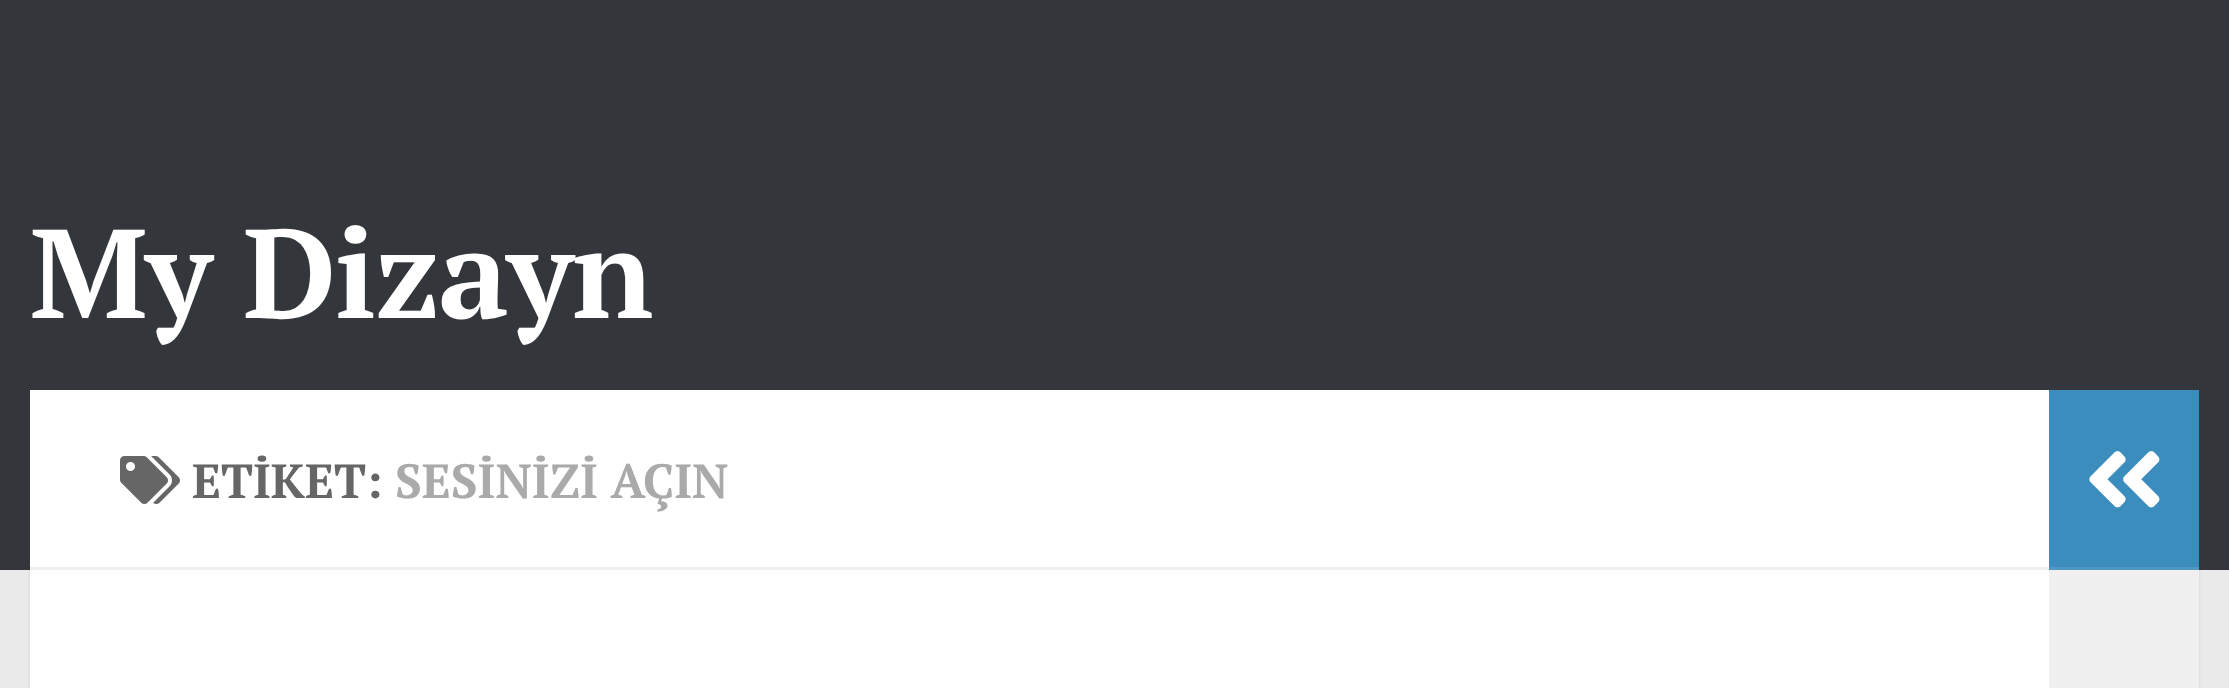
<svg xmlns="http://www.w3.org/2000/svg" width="2229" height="688">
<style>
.a{font:bold 126px PT Serif;letter-spacing:-1.5px;fill:#fff}
.b{font:bold 48px PT Serif;fill:#666}
.c{font:bold 48px PT Serif;fill:#aaa}
</style>
<rect width="100%" height="100%" fill="#eaeaea"/>
<path fill="#0000001a" filter="blur(1.5px)" d="M30 393h2169v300H30z"/>
<path fill="#33363b" d="M0 0h2229v570H0z"/>
<path fill="#fff" d="M30 390h2019v298H30z"/>
<path fill="#eee" d="M30 567h2019v3H30z"/>
<image href="1.png" x="120" y="456" width="60" height="48"/>
<path fill="#3b8dbd" d="M2049 390h150v177H2049z"/>
<path fill="#4f98c4" d="M2049 567h150v3H2049z"/>
<image href="2.png" x="2089" y="451" width="71" height="57"/>
<path fill="#f0f0f0" d="M2049 570h150v118H2049z"/>
<text class="a" x="30" y="318">My Dizayn</text>
<text class="b" x="192" y="498">ETİKET:</text>
<text class="c" x="395" y="498">SESİNİZİ AÇIN</text>
</svg>
